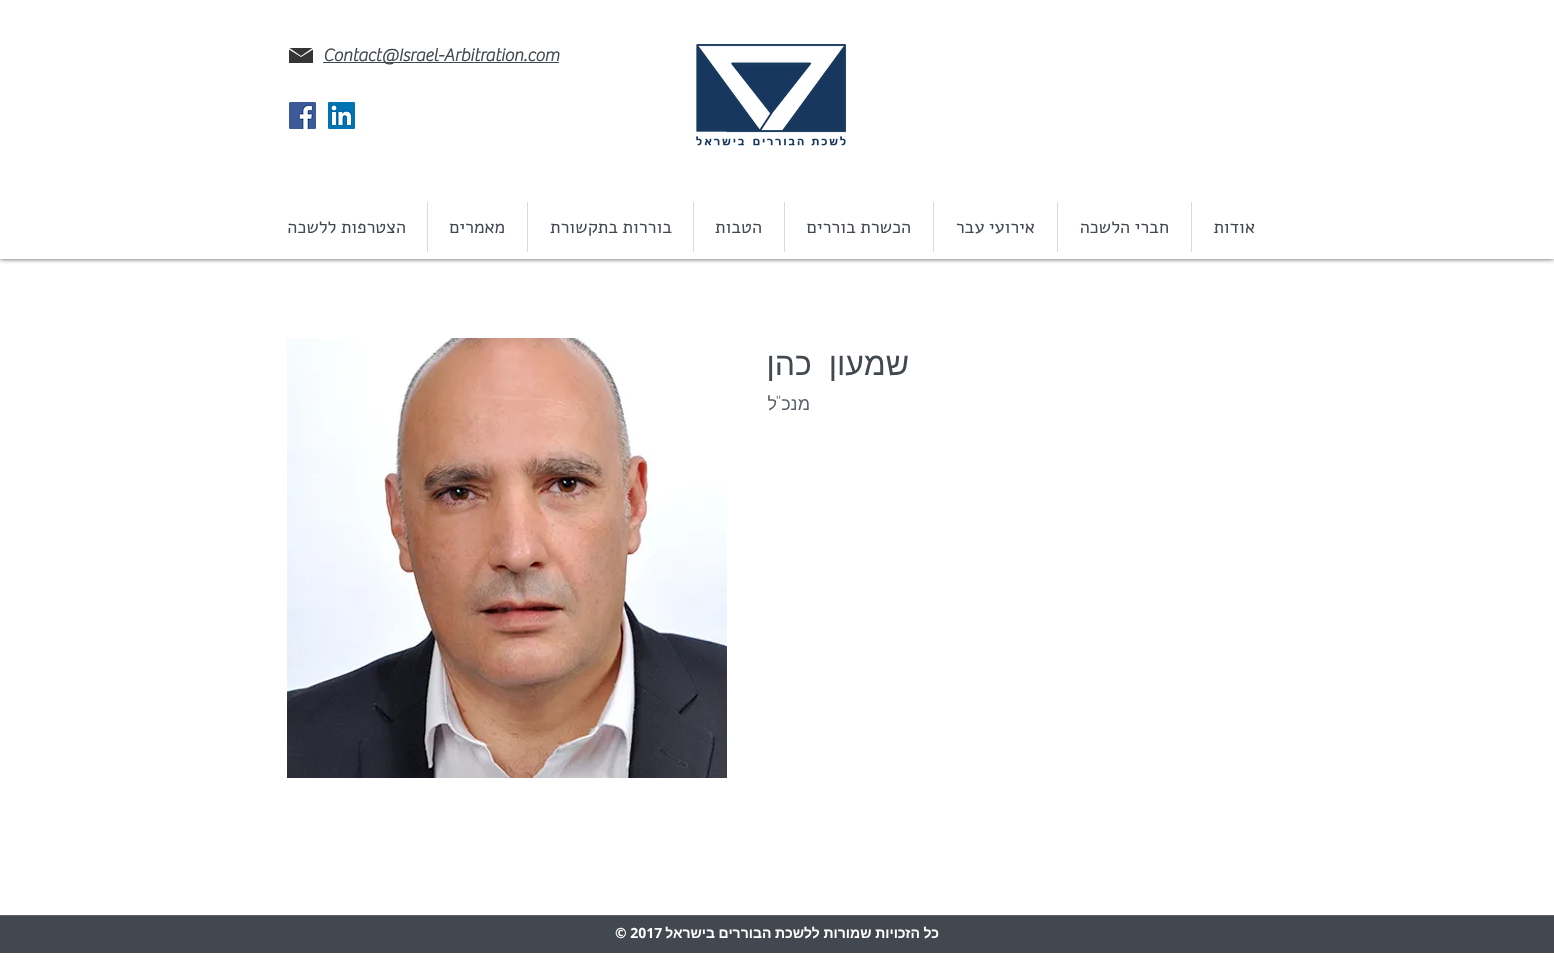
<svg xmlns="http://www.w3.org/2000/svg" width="1554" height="965">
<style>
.a{font:bold 18px 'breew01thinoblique';fill:#42484f}
.b{font:18px Alef;direction:rtl;fill:#42484f}
.c{font:32px Liberation Sans;direction:rtl;fill:#42484f}
.d{font:200 18px Poppins;direction:rtl;fill:#5d636b}
.e{font:18px Liberation Sans;direction:rtl;fill:#5d636b}
.f{font:bold 14px Liberation Sans;direction:rtl;fill:#fff}
.g{font:bold 14px Open Sans;fill:#fff}
</style>
<defs>
<clipPath id="clip1"><path d="M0 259h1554v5H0z"/></clipPath>
</defs>
<rect width="100%" height="100%" fill="#fff"/>
<g clip-path="url(#clip1)">
<path fill="#000000b3" filter="blur(2.5px)" d="M0 0h1554v259H0z"/>
</g>
<image href="1.png" x="696" y="44" width="151" height="102"/>
<path fill="#42484f" d="M323 62h236v1H323z"/>
<path fill="#363535" d="M301 56l-11.5-8h23zm12-6.5l-12 7.5l-12-7.5v13.5h24z"/>
<image href="2.png" x="328" y="102" width="27" height="27"/>
<image href="3.png" x="289" y="102" width="27" height="27"/>
<path fill="#d9dadc" d="M1191 202h1v50H1191z"/>
<path fill="#d9dadc" d="M1057 202h1v50H1057z"/>
<path fill="#d9dadc" d="M933 202h1v50H933z"/>
<path fill="#d9dadc" d="M784 202h1v50H784z"/>
<path fill="#d9dadc" d="M693 202h1v50H693z"/>
<path fill="#d9dadc" d="M527 202h1v50H527z"/>
<path fill="#d9dadc" d="M427 202h1v50H427z"/>
<image href="4.png" x="287" y="338" width="440" height="440"/>
<path fill="#42484f" d="M0 916h1554v37H0z"/>
<path fill="#5e6369" d="M0 915h1554v1H0z"/>
<text class="a" x="323" y="61">Contact@Israel-Arbitration.com</text>
<text class="b" x="1255" y="233">אודות</text>
<text class="b" x="1169" y="233">חברי הלשכה</text>
<text class="b" x="1035" y="233">אירועי עבר</text>
<text class="b" x="911" y="233">הכשרת בוררים</text>
<text class="b" x="762" y="233">הטבות</text>
<text class="b" x="672" y="233">בוררות בתקשורת</text>
<text class="b" x="505" y="233">מאמרים</text>
<text class="b" x="406" y="233">הצטרפות ללשכה</text>
<text class="c" x="909" y="375" word-spacing="8">שמעון כהן</text>
<text class="d" x="781" y="410">''</text>
<text class="e" x="777" y="410">ל</text>
<text class="e" x="810" y="410">מנכ</text>
<text class="f" x="939" y="938" word-spacing="-0.25">כל הזכויות שמורות ללשכת הבוררים בישראל</text>
<text class="g" x="615" y="938">© 2017</text>
</svg>
